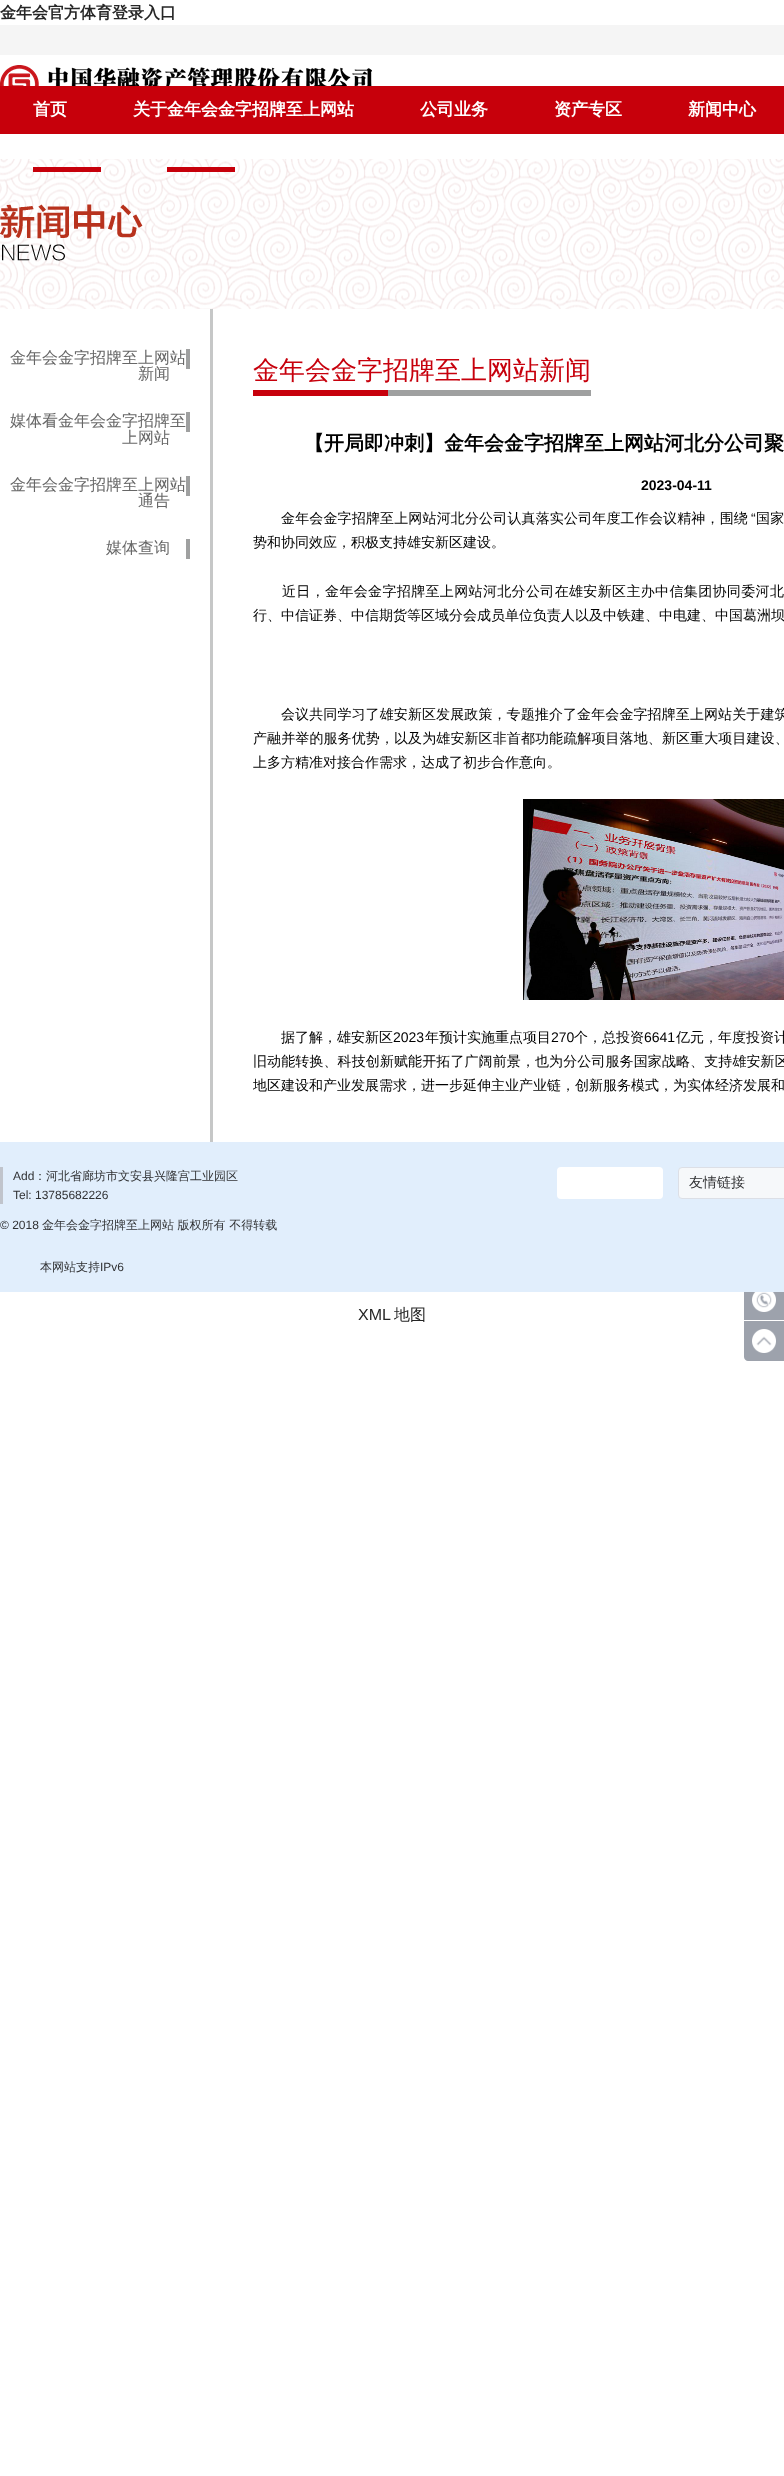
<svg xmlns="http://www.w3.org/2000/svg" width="784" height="2476">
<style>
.a{font:bold 16px WenQuanYi Zen Hei;fill:#262626}
.b{font:bold 17px WenQuanYi Zen Hei;fill:#fff}
.c{font:500 16px WenQuanYi Zen Hei;fill:#676767}
.d{font:500 26px WenQuanYi Zen Hei;fill:#c7000c}
.e{font:bold 20px WenQuanYi Zen Hei;fill:#000}
.f{font:bold 14px Liberation Sans;fill:#000}
.g{font:500 14px WenQuanYi Zen Hei;letter-spacing:0.15px;fill:#000}
.h{font:14px Liberation Sans;letter-spacing:0.15px;fill:#000}
.i{font:500 14px WenQuanYi Zen Hei;fill:#000}
.j{font:500 14px WenQuanYi Zen Hei;letter-spacing:0.35px;fill:#000}
.k{font:500 14px WenQuanYi Zen Hei;letter-spacing:0.1px;fill:#000}
.l{font:14px Liberation Sans;fill:#000}
.m{font:12px Liberation Sans;fill:#303133}
.n{font:500 12px WenQuanYi Zen Hei;fill:#303133}
.o{font:500 14px WenQuanYi Zen Hei;fill:#303133}
.p{font:16px Liberation Sans;fill:#262626}
.q{font:500 16px WenQuanYi Zen Hei;fill:#262626}
</style>
<rect width="100%" height="100%" fill="#fff"/>
<path fill="#f5f5f5" d="M0 25h784v30H0z"/>
<image href="1.png" x="0" y="65" width="372" height="21"/>
<path fill="#c7000b" d="M0 86h784v48H0z"/>
<image href="2.png" x="0" y="159" width="784" height="150"/>
<path fill="#c7000b" d="M33 167h68v5H33z"/>
<path fill="#c7000b" d="M167 167h68v5H167z"/>
<image href="3.png" x="0" y="204" width="143" height="57"/>
<path fill="#9fa0a0" d="M186 349h4v20H186z"/>
<path fill="#9fa0a0" d="M186 412h4v20H186z"/>
<path fill="#9fa0a0" d="M186 476h4v20H186z"/>
<path fill="#9fa0a0" d="M186 539h4v20H186z"/>
<path fill="#c6c7c7" d="M210 309h3v833H210z"/>
<path fill="#c7000c" d="M253 390h135v6H253z"/>
<path fill="#9fa0a0" d="M388 390h203v6H388z"/>
<image href="4.png" x="523" y="799" width="261" height="201"/>
<path fill="#e1eefc" d="M0 1142h784v150H0z"/>
<path fill="#c0c4cc" d="M0 1167h3v37H0z"/>
<rect fill="#fff" x="557" y="1167" width="106" height="32" rx="4"/>
<rect fill="#f6f8fa" stroke="#dcdfe6" x="678.5" y="1167.5" width="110" height="31" rx="3.5"/>
<path fill="#9da2ac" d="M744 1292h40v28H744z"/>
<image href="5.png" x="752" y="1292" width="24" height="20"/>
<path fill="#9da2ac" d="M744 1321h40v40h-36c-2 0-4-2-4-4z"/>
<image href="6.png" x="752" y="1329" width="24" height="24"/>
<text class="a" x="0" y="18">金年会官方体育登录入口</text>
<text class="b" x="33" y="115">首页</text>
<text class="b" x="133" y="115">关于金年会金字招牌至上网站</text>
<text class="b" x="420" y="115">公司业务</text>
<text class="b" x="554" y="115">资产专区</text>
<text class="b" x="688" y="115">新闻中心</text>
<text class="c" x="10" y="363">金年会金字招牌至上网站</text>
<text class="c" x="138" y="379">新闻</text>
<text class="c" x="10" y="426">媒体看金年会金字招牌至</text>
<text class="c" x="122" y="443">上网站</text>
<text class="c" x="10" y="490">金年会金字招牌至上网站</text>
<text class="c" x="138" y="506">通告</text>
<text class="c" x="106" y="553">媒体查询</text>
<text class="d" x="253" y="379">金年会金字招牌至上网站新闻</text>
<text class="e" x="304" y="450">【开局即冲刺】金年会金字招牌至上网站河北分公司聚</text>
<text class="f" x="641" y="490">2023-04-11</text>
<text class="g" x="281" y="523">金年会金字招牌至上网站河北分公司认真落实公司年度工作会议精神，围绕</text>
<text class="h" x="751" y="523">“</text>
<text class="g" x="756" y="523">国家</text>
<text class="i" x="253" y="547">势和协同效应，积极支持雄安新区建设。</text>
<text class="j" x="282" y="596">近日，金年会金字招牌至上网站河北分公司在雄安新区主办中信集团协同委河北</text>
<text class="i" x="253" y="620">行、中信证券、中信期货等区域分会成员单位负责人以及中铁建、中电建、中国葛洲坝</text>
<text class="k" x="281" y="719">会议共同学习了雄安新区发展政策，专题推介了金年会金字招牌至上网站关于建筑</text>
<text class="k" x="253" y="743">产融并举的服务优势，以及为雄安新区非首都功能疏解项目落地、新区重大项目建设、</text>
<text class="i" x="253" y="767">上多方精准对接合作需求，达成了初步合作意向。</text>
<text class="i" x="281" y="1042">据了解，雄安新区</text>
<text class="l" x="393" y="1042">2023</text>
<text class="i" x="425" y="1042">年预计实施重点项目</text>
<text class="l" x="551" y="1042">270</text>
<text class="i" x="574" y="1042">个，总投资</text>
<text class="l" x="644" y="1042">6641</text>
<text class="i" x="676" y="1042">亿元，年度投资计</text>
<text class="k" x="253" y="1066">旧动能转换、科技创新赋能开拓了广阔前景，也为分公司服务国家战略、支持雄安新区</text>
<text class="i" x="253" y="1090">地区建设和产业发展需求，进一步延伸主业产业链，创新服务模式，为实体经济发展和</text>
<text class="m" x="13" y="1180">Add</text>
<text class="n" x="34" y="1180">：河北省廊坊市文安县兴隆宫工业园区</text>
<text class="m" x="13" y="1199">Tel: 13785682226</text>
<text class="m" x="0" y="1229">© 2018</text>
<text class="n" x="42" y="1229">金年会金字招牌至上网站 版权所有 不得转载</text>
<text class="n" x="40" y="1271">本网站支持</text>
<text class="m" x="100" y="1271">IPv6</text>
<text class="o" x="689" y="1187">友情链接</text>
<text class="p" x="358" y="1320">XML</text>
<text class="q" x="394" y="1320">地图</text>
</svg>
